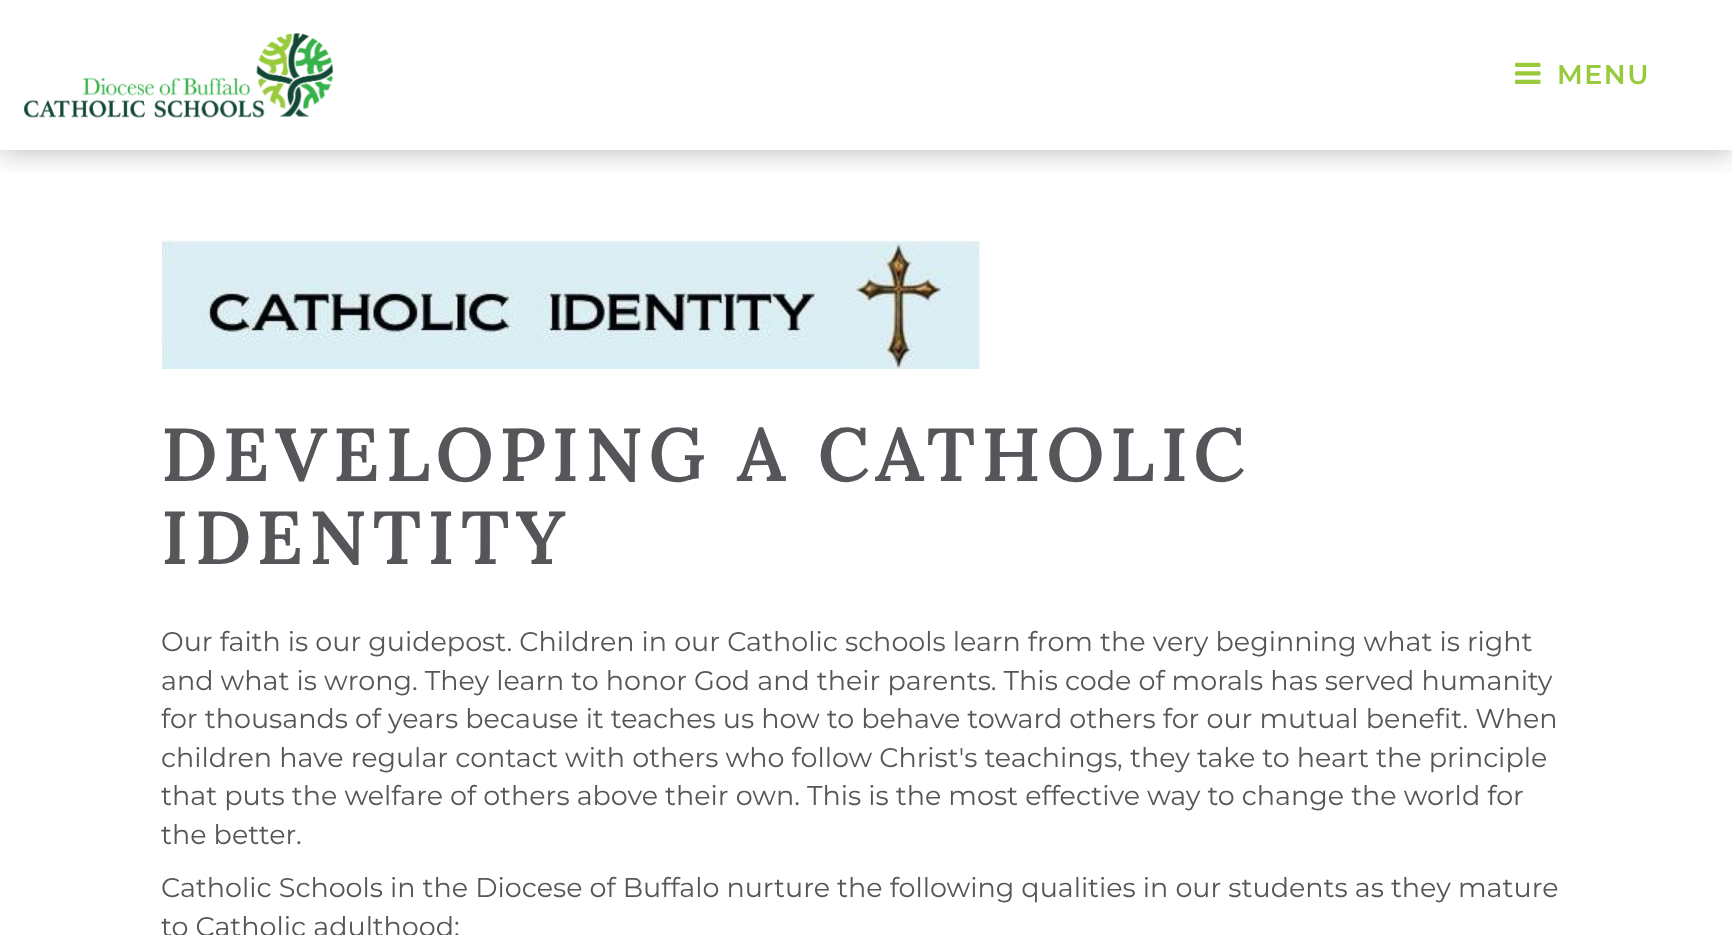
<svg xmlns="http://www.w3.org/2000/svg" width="1732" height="935">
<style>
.a{font:600 27px Montserrat;letter-spacing:1.5px;fill:#98ca3c}
.b{font:600 75px Lora;letter-spacing:6px;fill:#54565a}
.c{font:27px Montserrat;fill:#54565a}
</style>
<defs>
<clipPath id="clip1"><path d="M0 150h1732v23H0z"/></clipPath>
</defs>
<rect width="100%" height="100%" fill="#fff"/>
<g clip-path="url(#clip1)">
<path fill="#0000004d" filter="blur(15px)" d="M0 0h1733v150H0z"/>
</g>
<image href="1.png" x="24" y="33" width="310" height="85"/>
<image href="2.png" x="1515" y="62" width="26" height="22"/>
<image href="3.png" x="162" y="240" width="818" height="129"/>
<text class="a" x="1557" y="84">MENU</text>
<text class="b" x="161" y="481">DEVELOPING A CATHOLIC</text>
<text class="b" x="161" y="564">IDENTITY</text>
<text class="c" x="161" y="651">Our faith is our guidepost. Children in our Catholic schools learn from the very beginning what is right</text>
<text class="c" x="161" y="690">and what is wrong. They learn to honor God and their parents. This code of morals has served humanity</text>
<text class="c" x="161" y="728">for thousands of years because it teaches us how to behave toward others for our mutual benefit. When</text>
<text class="c" x="161" y="767">children have regular contact with others who follow Christ's teachings, they take to heart the principle</text>
<text class="c" x="161" y="805">that puts the welfare of others above their own. This is the most effective way to change the world for</text>
<text class="c" x="161" y="844">the better.</text>
<text class="c" x="161" y="897">Catholic Schools in the Diocese of Buffalo nurture the following qualities in our students as they mature</text>
<text class="c" x="161" y="936">to Catholic adulthood:</text>
</svg>
